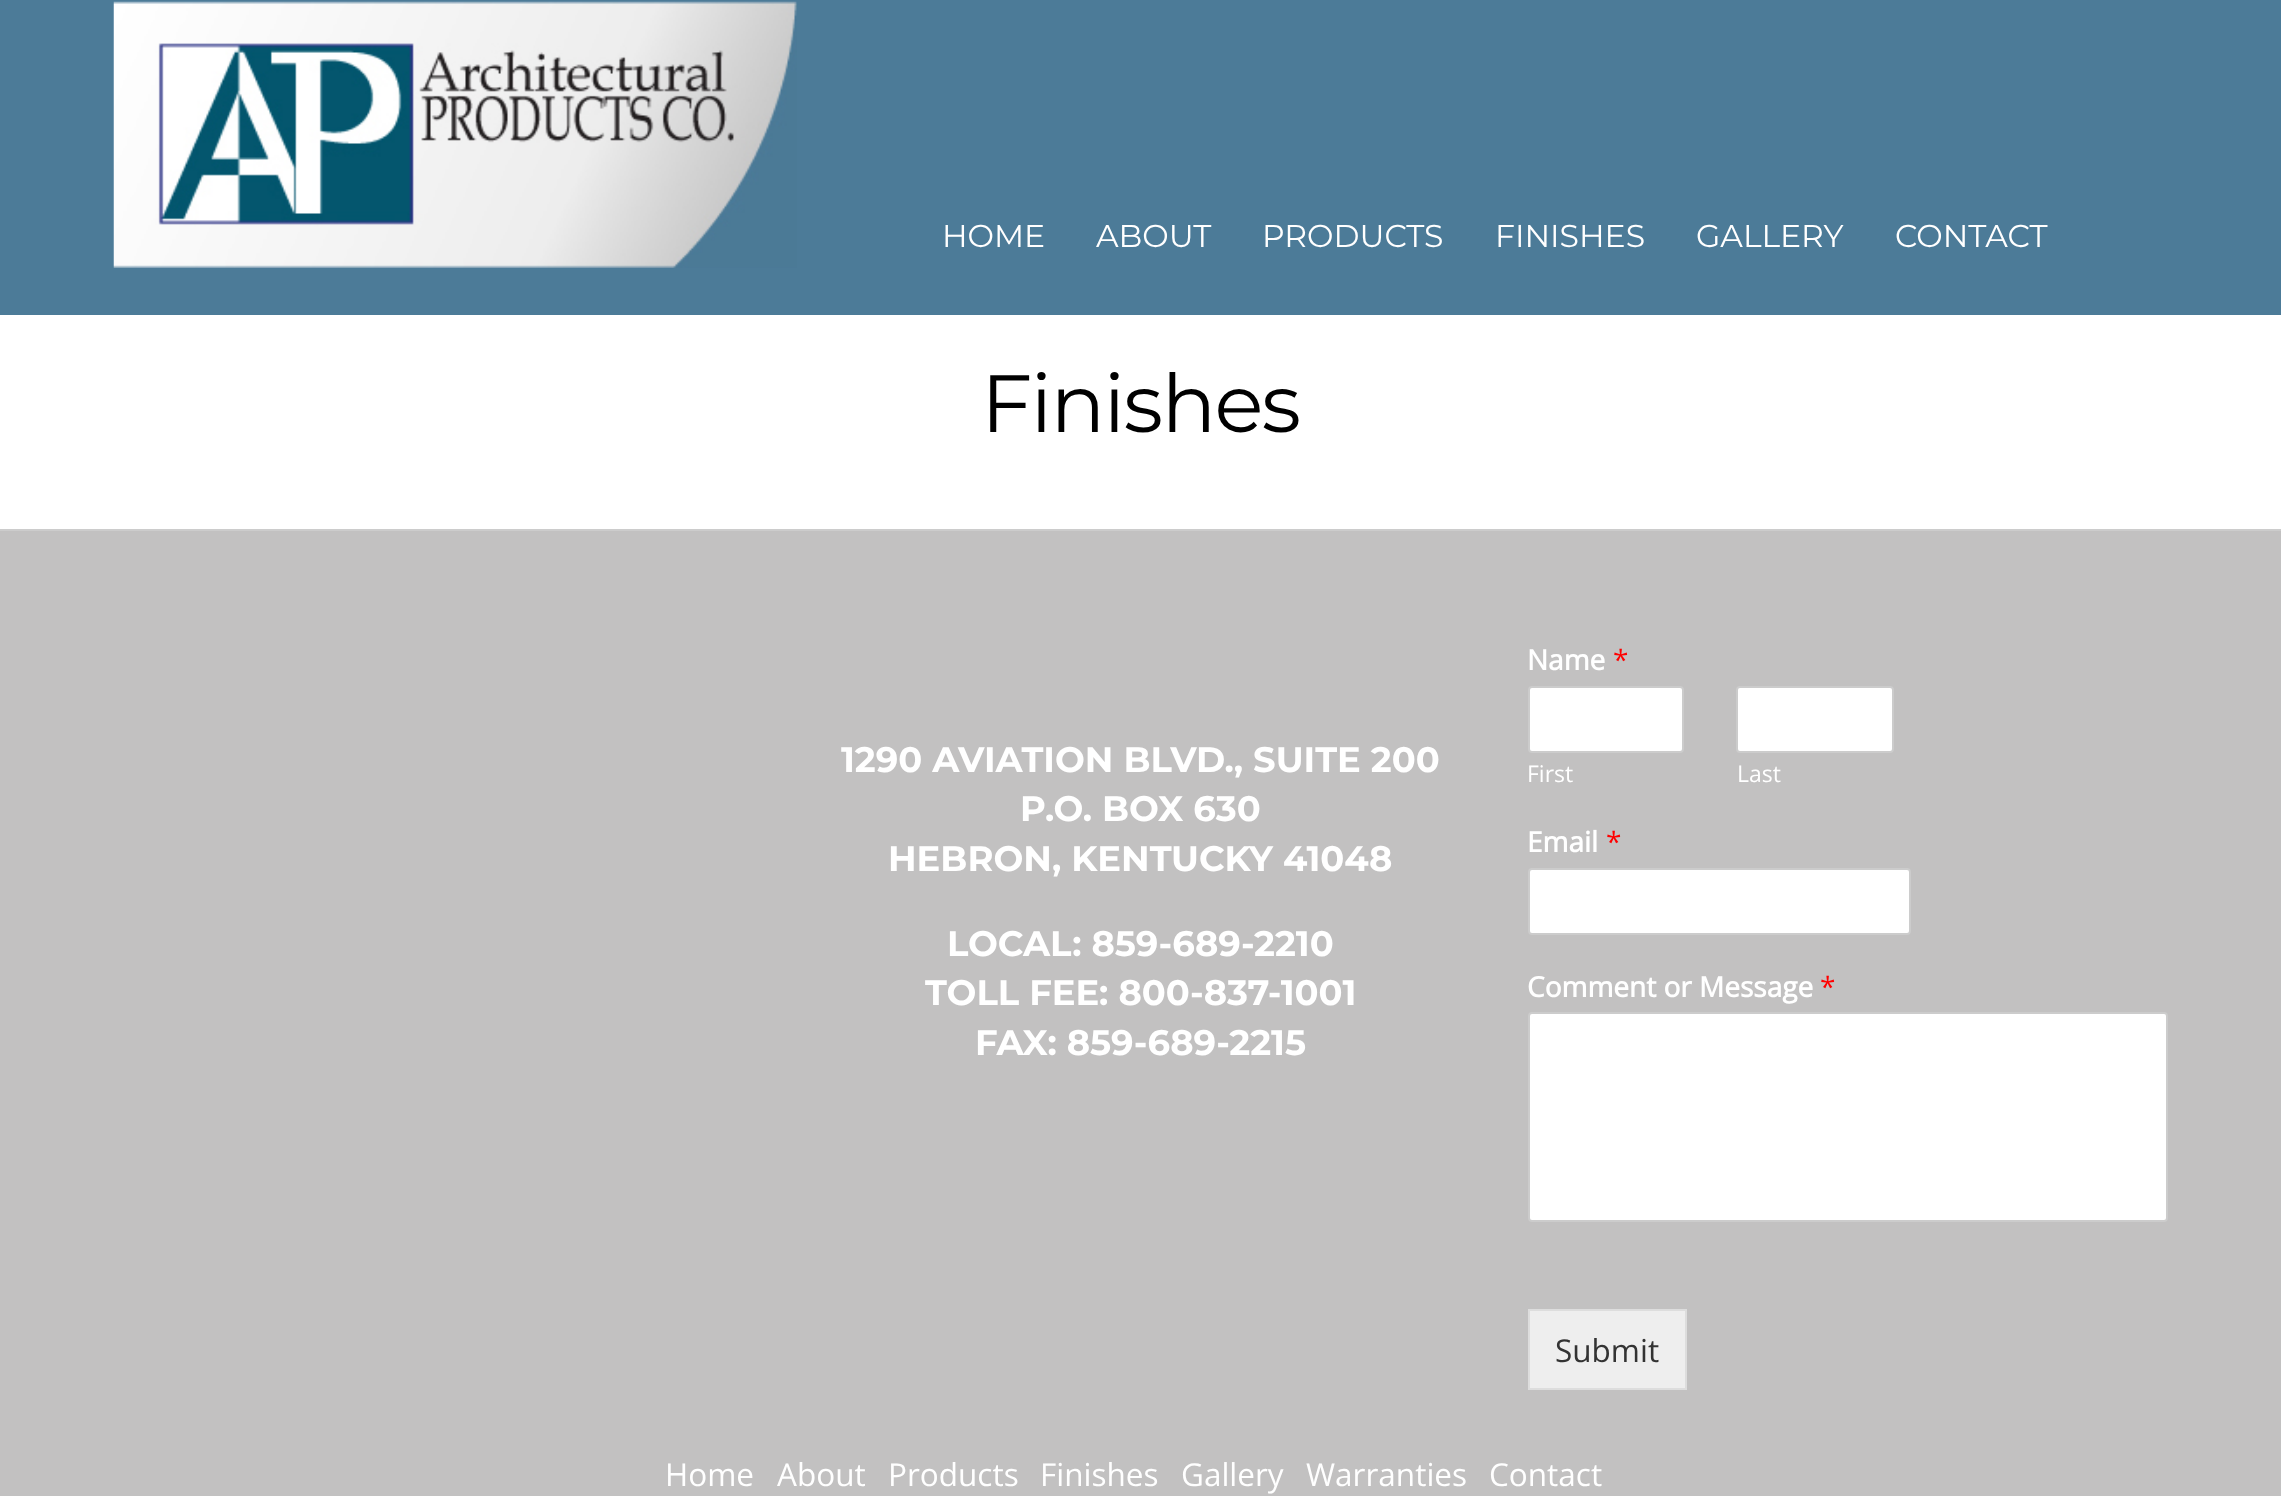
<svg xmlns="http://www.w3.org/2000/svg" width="2281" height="1496">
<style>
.a{font:31.5px Montserrat;fill:#fff}
.b{font:81px Montserrat;letter-spacing:-1.75px;fill:#000}
.c{font:bold 35.4px Montserrat;fill:#fff}
.d{font:bold 28px Open Sans;fill:#fff}
.e{font:28px Open Sans;fill:#f00}
.f{font:23px Open Sans;fill:#fff}
.g{font:31.5px Open Sans;fill:#333}
.h{font:31.5px Open Sans;fill:#fff}
</style>
<rect width="100%" height="100%" fill="#fff"/>
<path fill="#4c7b98" d="M0 0h2281v315H0z"/>
<image href="1.png" x="113" y="1" width="684" height="267"/>
<path fill="#c2c1c1" d="M0 531h2281v965H0z"/>
<path fill="#ccc" d="M0 529h2281v2H0z"/>
<rect fill="#fff" stroke="#ccc" stroke-width="2" x="1529" y="687" width="154" height="65" rx="3"/>
<rect fill="#fff" stroke="#ccc" stroke-width="2" x="1737" y="687" width="156" height="65" rx="3"/>
<rect fill="#fff" stroke="#ccc" stroke-width="2" x="1529" y="869" width="381" height="65" rx="3"/>
<rect fill="#fff" stroke="#ccc" stroke-width="2" x="1529" y="1013" width="638" height="208" rx="3"/>
<path fill="#eee" stroke="#ddd" stroke-width="2" d="M1529 1310h157v79H1529z"/>
<text class="a" x="942" y="247">HOME</text>
<text class="a" x="1096" y="247">ABOUT</text>
<text class="a" x="1262" y="247">PRODUCTS</text>
<text class="a" x="1495" y="247">FINISHES</text>
<text class="a" x="1696" y="247">GALLERY</text>
<text class="a" x="1895" y="247">CONTACT</text>
<text class="b" x="981" y="432">Finishes</text>
<text class="c" x="841" y="772">1290 AVIATION BLVD., SUITE 200</text>
<text class="c" x="1020" y="821">P.O. BOX 630</text>
<text class="c" x="888" y="871">HEBRON, KENTUCKY 41048</text>
<text class="c" x="947" y="956">LOCAL: 859-689-2210</text>
<text class="c" x="925" y="1005">TOLL FEE: 800-837-1001</text>
<text class="c" x="975" y="1055">FAX: 859-689-2215</text>
<text class="d" x="1527" y="670">Name</text>
<text class="e" x="1613" y="670">*</text>
<text class="f" x="1527" y="782">First</text>
<text class="f" x="1737" y="782">Last</text>
<text class="d" x="1527" y="852">Email</text>
<text class="e" x="1606" y="852">*</text>
<text class="d" x="1527" y="997">Comment or Message</text>
<text class="e" x="1820" y="997">*</text>
<text class="g" x="1555" y="1362">Submit</text>
<text class="h" x="665" y="1486">Home</text>
<text class="h" x="777" y="1486">About</text>
<text class="h" x="888" y="1486">Products</text>
<text class="h" x="1040" y="1486">Finishes</text>
<text class="h" x="1181" y="1486">Gallery</text>
<text class="h" x="1306" y="1486">Warranties</text>
<text class="h" x="1489" y="1486">Contact</text>
</svg>
